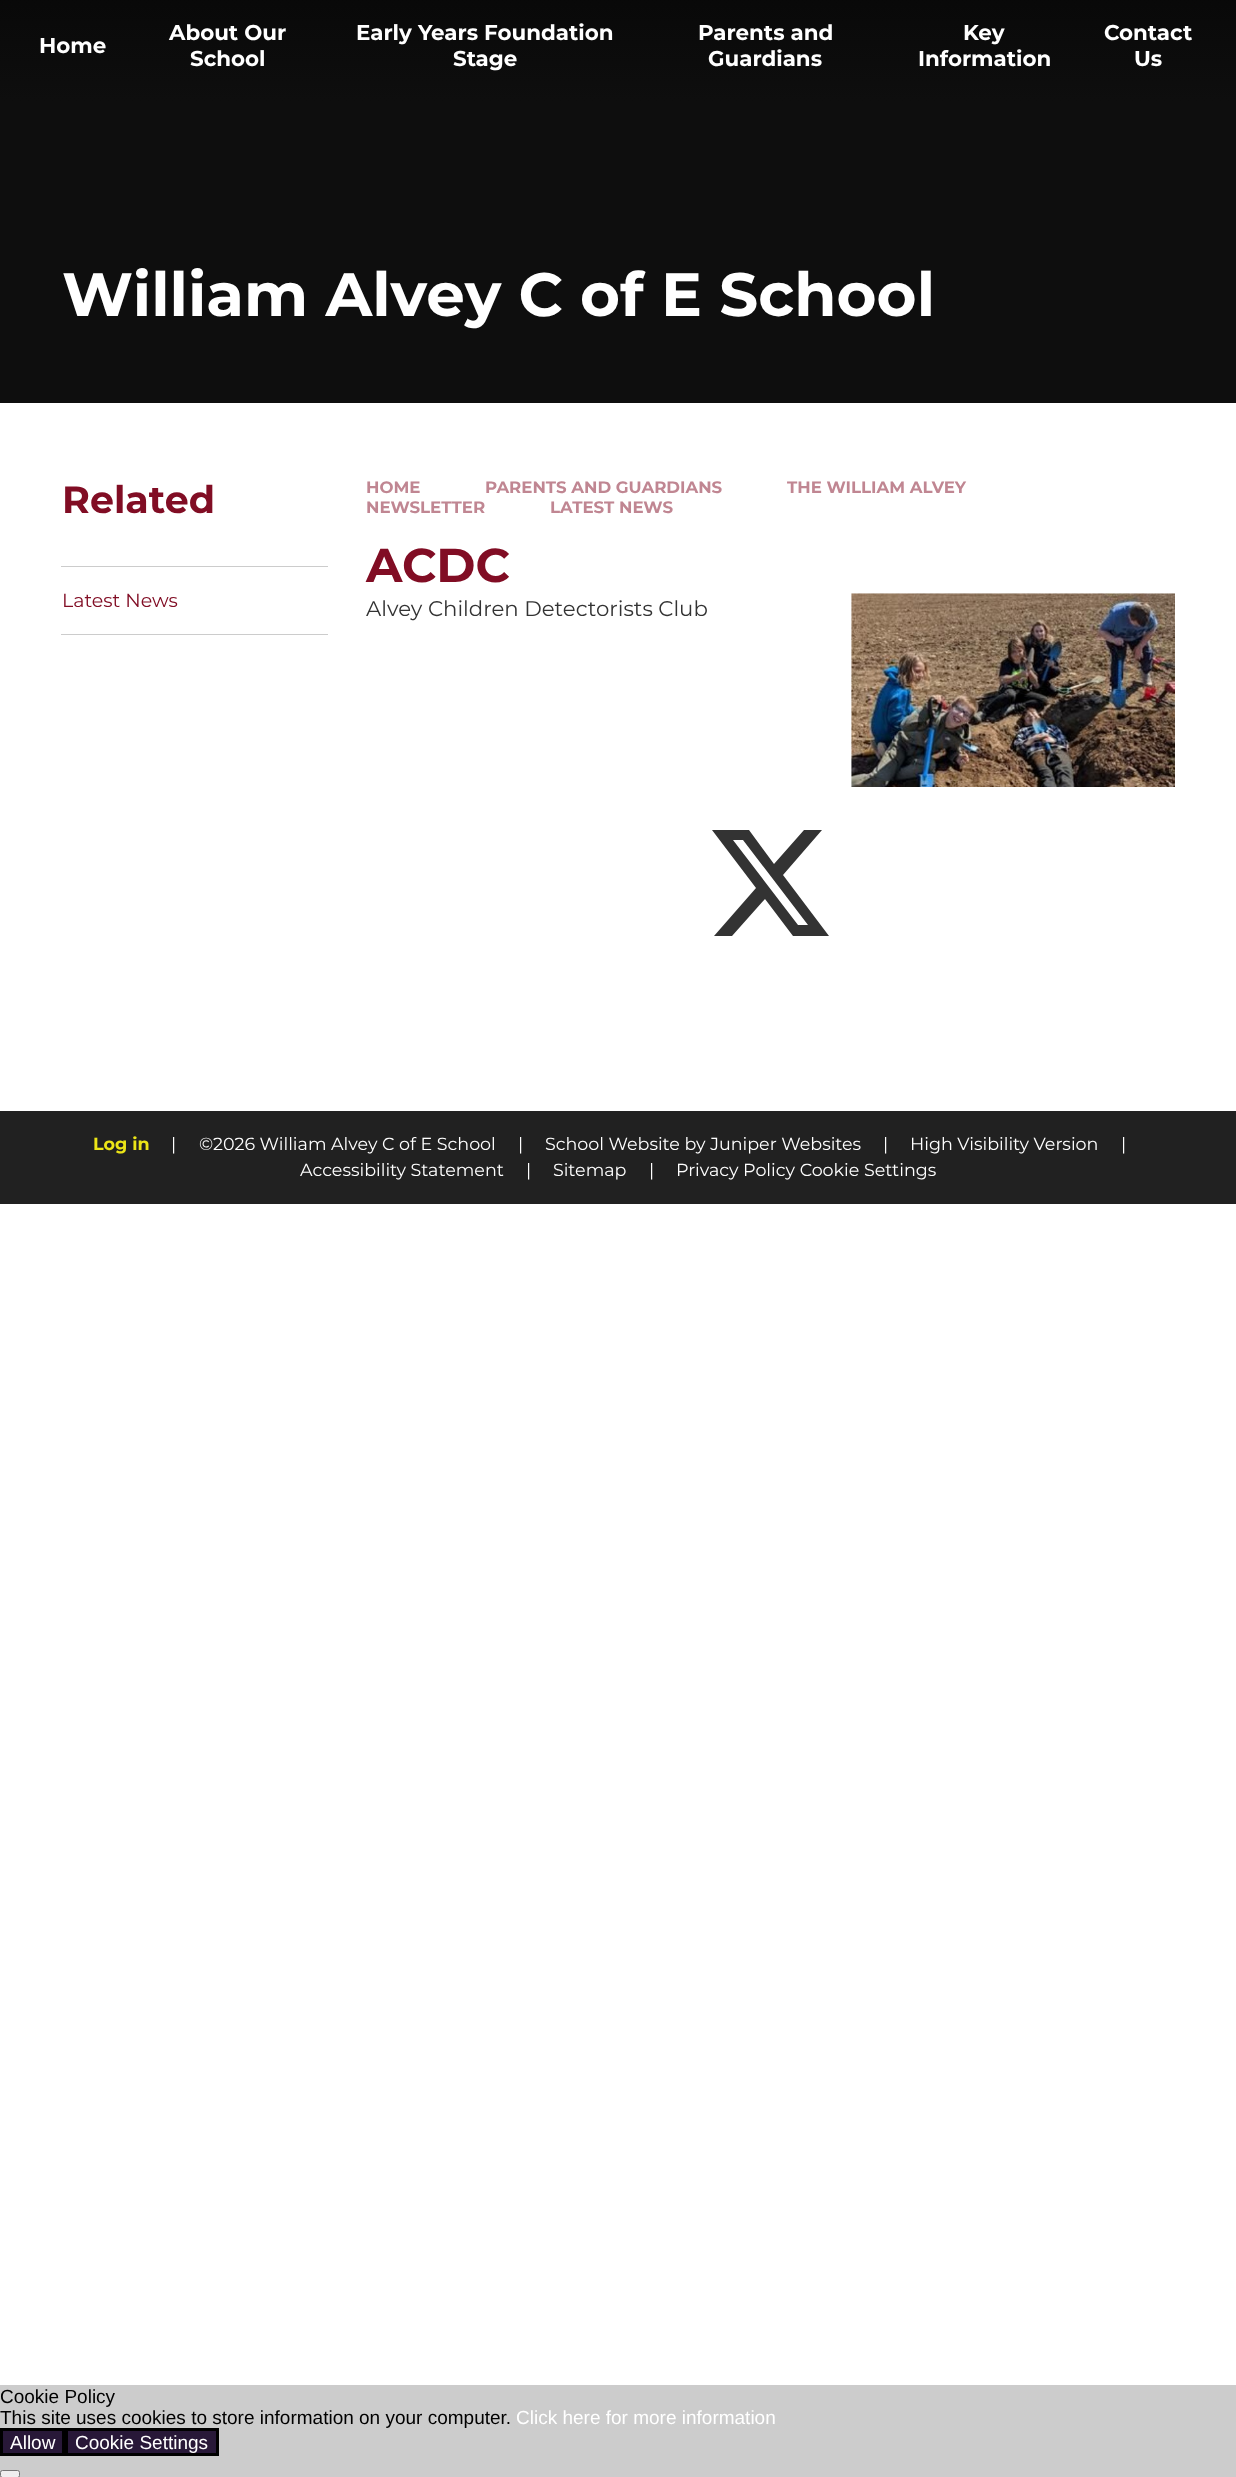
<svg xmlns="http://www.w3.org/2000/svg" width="1236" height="2477">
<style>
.a{font:bold 21.4px Montserrat;fill:#fff}
.b{font:bold 61.1px Montserrat;fill:#fff}
.c{font:bold 38px Montserrat;fill:#810d24}
.d{font:19px Montserrat;fill:#810d24}
.e{font:bold 16.6px Montserrat;fill:#c08692}
.f{font:bold 47.5px Montserrat;fill:#810d24}
.g{font:21.25px Montserrat;fill:#333}
.h{font:bold 17.5px Montserrat;fill:#ece517}
.i{font:17.5px Montserrat;fill:#fff}
.j{font:19px Liberation Sans;fill:#000}
.k{font:19px Liberation Sans;fill:#fff}
</style>
<defs>
<linearGradient id="g1" gradientUnits="userSpaceOnUse" x1="618" y1="-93" x2="618" y2="101"><stop offset="0" stop-color="#040404"/><stop offset="1" stop-color="#0e0e0e"/></linearGradient>
</defs>
<rect width="100%" height="100%" fill="#ccc"/>
<path fill="#fff" d="M0 403h1236v1982H0z"/>
<path fill="url(#g1)" d="M0 0h1236v101H0z"/>
<path fill="#0e0e0e" d="M0 101h1236v302H0z"/>
<path fill="#ccc" d="M61 566h267v1H61z"/>
<path fill="#ccc" d="M61 634h267v1H61z"/>
<image href="1.png" x="851" y="593" width="324" height="194"/>
<path fill="#333" d="M804 830h18l-39 45l46 61h-36l-28-37l-33 37h-18l42-48l-44-58h37l25 34zm-6 95h10l-65-85h-10z"/>
<path fill="#212121" d="M0 1111h1236v93H0z"/>
<path fill="#281838" stroke="#000" stroke-width="3" d="M1.5 2429.5h62v25H1.5z"/>
<path fill="#281838" stroke="#000" stroke-width="3" d="M66.5 2429.5h151v25H66.5z"/>
<rect fill="#efefef" stroke="#767676" x="0.5" y="2470.5" width="19" height="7" rx="2"/>
<text class="a" x="39" y="53">Home</text>
<text class="a" x="169" y="40">About Our</text>
<text class="a" x="190" y="66">School</text>
<text class="a" x="356" y="40">Early Years Foundation</text>
<text class="a" x="453" y="66">Stage</text>
<text class="a" x="698" y="40">Parents and</text>
<text class="a" x="708" y="66">Guardians</text>
<text class="a" x="963" y="40">Key</text>
<text class="a" x="918" y="66">Information</text>
<text class="a" x="1104" y="40">Contact</text>
<text class="a" x="1134" y="66">Us</text>
<text class="b" x="62" y="316">William Alvey C of E School</text>
<text class="c" x="62" y="513">Related</text>
<text class="d" x="62" y="607">Latest News</text>
<text class="e" x="366" y="493">HOME</text>
<text class="e" x="485" y="493">PARENTS AND GUARDIANS</text>
<text class="e" x="787" y="493">THE WILLIAM ALVEY</text>
<text class="e" x="366" y="513">NEWSLETTER</text>
<text class="e" x="550" y="513">LATEST NEWS</text>
<text class="f" x="366" y="582">ACDC</text>
<text class="g" x="366" y="616">Alvey Children Detectorists Club</text>
<text class="h" x="93" y="1150">Log in</text>
<text class="i" x="171" y="1150">|</text>
<text class="i" x="199" y="1150">©2026 William Alvey C of E School</text>
<text class="i" x="518" y="1150">|</text>
<text class="i" x="545" y="1150">School Website by Juniper Websites</text>
<text class="i" x="883" y="1150">|</text>
<text class="i" x="910" y="1150">High Visibility Version</text>
<text class="i" x="1121" y="1150">|</text>
<text class="i" x="300" y="1176">Accessibility Statement</text>
<text class="i" x="526" y="1176">|</text>
<text class="i" x="553" y="1176">Sitemap</text>
<text class="i" x="649" y="1176">|</text>
<text class="i" x="676" y="1176">Privacy Policy Cookie Settings</text>
<text class="j" x="0" y="2403">Cookie Policy</text>
<text class="j" x="0" y="2424">This site uses cookies to store information on your computer.</text>
<text class="k" x="516" y="2424">Click here for more information</text>
<text class="k" x="10" y="2449">Allow</text>
<text class="k" x="75" y="2449">Cookie Settings</text>
</svg>
